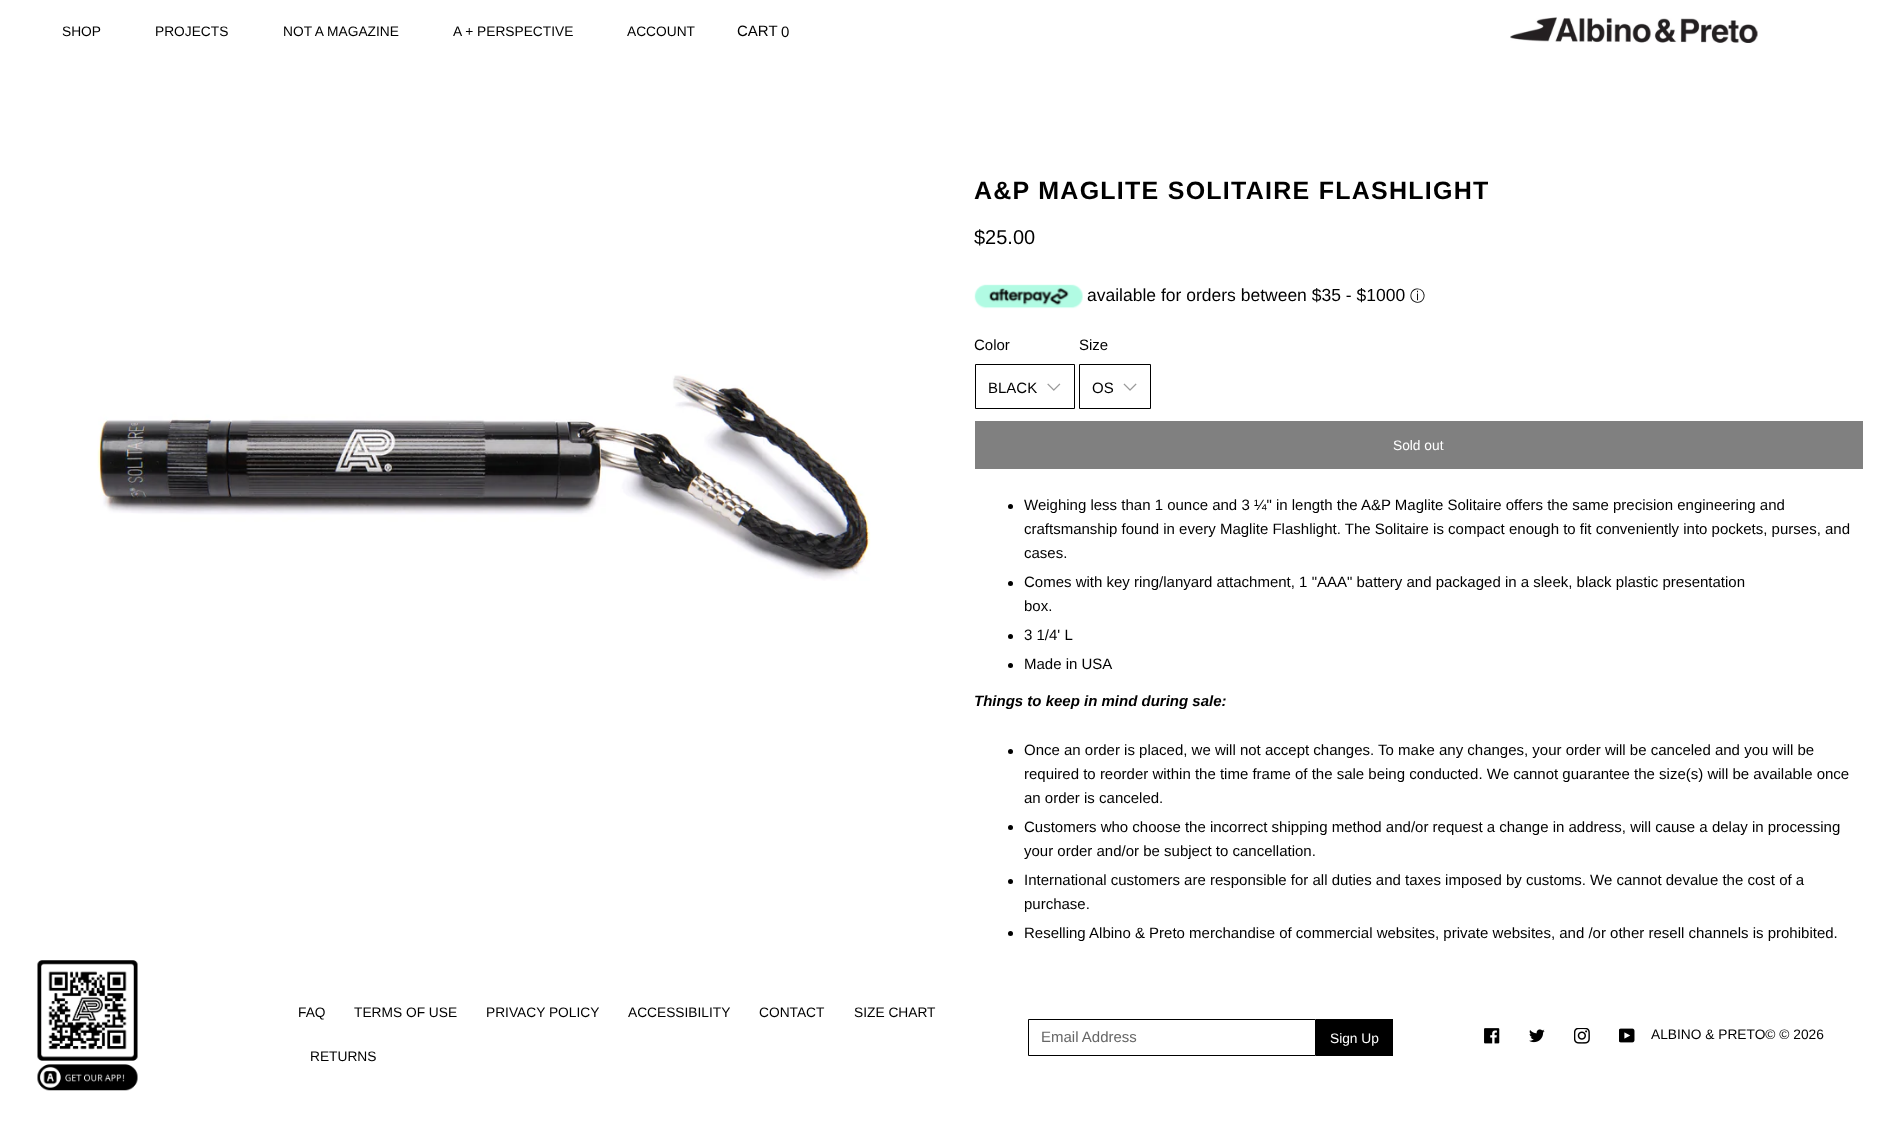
<svg xmlns="http://www.w3.org/2000/svg" width="1898" height="1121">
<style>
.a{font:13.75px Liberation Sans;fill:#000}
.b{font:15px Liberation Sans;fill:#000}
.c{font:bold 25px Liberation Sans;letter-spacing:1.25px;fill:#000}
.d{font:20px Liberation Sans;fill:#000}
.e{font:17.5px Liberation Sans;fill:#000}
.f{font:500 15px WenQuanYi Zen Hei;fill:#000}
.g{font:13.75px Liberation Sans;fill:#fff}
.h{font:italic bold 15px Liberation Sans;fill:#000}
.i{font:15px Liberation Sans;fill:#666}
</style>
<rect width="100%" height="100%" fill="#fff"/>
<image href="1.png" x="1510" y="17" width="248" height="26"/>
<image href="2.png" x="97" y="374" width="774" height="207"/>
<image href="3.png" x="974" y="284" width="109" height="25"/>
<image href="4.png" x="1047" y="383" width="14" height="8"/>
<path fill="none" stroke="#000" d="M975.5 364.5h99v44H975.5z"/>
<image href="5.png" x="1123" y="383" width="14" height="8"/>
<path fill="none" stroke="#000" d="M1079.5 364.5h71v44H1079.5z"/>
<path fill="#808080" d="M975 421h888v48H975z"/>
<circle fill="#000" cx="1010.5" cy="506.5" r="2.5"/>
<circle fill="#000" cx="1010.5" cy="583.5" r="2.5"/>
<circle fill="#000" cx="1010.5" cy="636.5" r="2.5"/>
<circle fill="#000" cx="1010.5" cy="665.5" r="2.5"/>
<circle fill="#000" cx="1010.5" cy="751.5" r="2.5"/>
<circle fill="#000" cx="1010.5" cy="827.5" r="2.5"/>
<circle fill="#000" cx="1010.5" cy="881.5" r="2.5"/>
<circle fill="#000" cx="1010.5" cy="933.5" r="2.5"/>
<image href="6.png" x="37" y="960" width="101" height="131"/>
<path fill="none" stroke="#000" d="M1028.5 1019.5h287v36H1028.5z"/>
<path fill="#000" d="M1316 1019h77v37H1316z"/>
<image href="7.png" x="1484" y="1028" width="16" height="16"/>
<image href="8.png" x="1529" y="1029" width="16" height="14"/>
<image href="9.png" x="1574" y="1028" width="16" height="16"/>
<image href="10.png" x="1619" y="1028" width="16" height="15"/>
<text class="a" x="62" y="36">SHOP</text>
<text class="a" x="155" y="36">PROJECTS</text>
<text class="a" x="283" y="36">NOT A MAGAZINE</text>
<text class="a" x="453" y="36">A + PERSPECTIVE</text>
<text class="a" x="627" y="36">ACCOUNT</text>
<text class="b" x="737" y="36">CART</text>
<text class="b" x="781" y="37">0</text>
<text class="c" x="974" y="199">A&amp;P MAGLITE SOLITAIRE FLASHLIGHT</text>
<text class="d" x="974" y="244">$25.00</text>
<text class="e" x="1087" y="301">available for orders between $35 - $1000</text>
<text class="f" x="1410" y="301">ⓘ</text>
<text class="b" x="974" y="350">Color</text>
<text class="b" x="988" y="393">BLACK</text>
<text class="b" x="1079" y="350">Size</text>
<text class="b" x="1092" y="393">OS</text>
<text class="g" x="1393" y="450">Sold out</text>
<text class="b" x="1024" y="510">Weighing less than 1 ounce and 3 ¼" in length the A&amp;P Maglite Solitaire offers the same precision engineering and</text>
<text class="b" x="1024" y="534">craftsmanship found in every Maglite Flashlight. The Solitaire is compact enough to fit conveniently into pockets, purses, and</text>
<text class="b" x="1024" y="558">cases.</text>
<text class="b" x="1024" y="587">Comes with key ring/lanyard attachment, 1 "AAA" battery and packaged in a sleek, black plastic presentation</text>
<text class="b" x="1024" y="611">box.</text>
<text class="b" x="1024" y="640">3 1/4' L</text>
<text class="b" x="1024" y="669">Made in USA</text>
<text class="h" x="974" y="706">Things to keep in mind during sale:</text>
<text class="b" x="1024" y="755">Once an order is placed, we will not accept changes. To make any changes, your order will be canceled and you will be</text>
<text class="b" x="1024" y="779">required to reorder within the time frame of the sale being conducted. We cannot guarantee the size(s) will be available once</text>
<text class="b" x="1024" y="803">an order is canceled.</text>
<text class="b" x="1024" y="832">Customers who choose the incorrect shipping method and/or request a change in address, will cause a delay in processing</text>
<text class="b" x="1024" y="856">your order and/or be subject to cancellation.</text>
<text class="b" x="1024" y="885">International customers are responsible for all duties and taxes imposed by customs. We cannot devalue the cost of a</text>
<text class="b" x="1024" y="909">purchase.</text>
<text class="b" x="1024" y="938">Reselling Albino &amp; Preto merchandise of commercial websites, private websites, and /or other resell channels is prohibited.</text>
<text class="a" x="298" y="1017">FAQ</text>
<text class="a" x="354" y="1017">TERMS OF USE</text>
<text class="a" x="486" y="1017">PRIVACY POLICY</text>
<text class="a" x="628" y="1017">ACCESSIBILITY</text>
<text class="a" x="759" y="1017">CONTACT</text>
<text class="a" x="854" y="1017">SIZE CHART</text>
<text class="a" x="310" y="1061">RETURNS</text>
<text class="i" x="1041" y="1042">Email Address</text>
<text class="g" x="1330" y="1043">Sign Up</text>
<text class="a" x="1651" y="1039">ALBINO &amp; PRETO© © 2026</text>
</svg>
